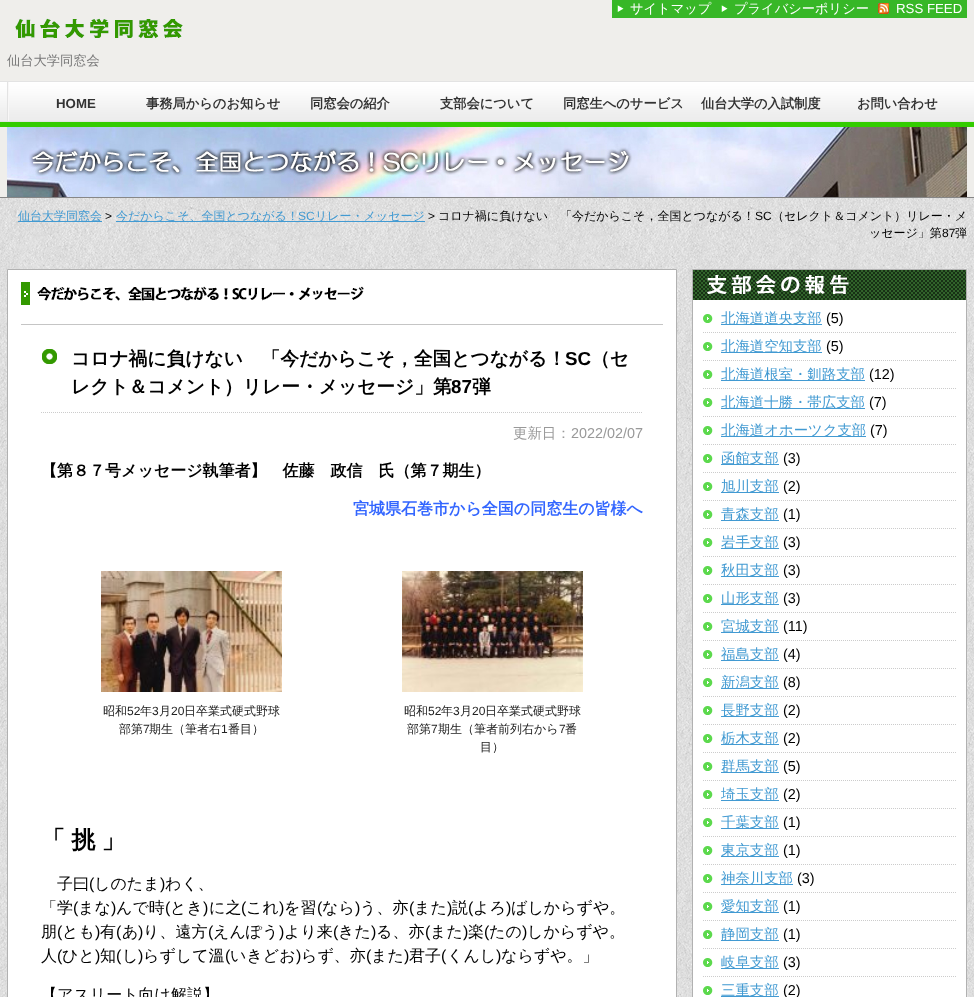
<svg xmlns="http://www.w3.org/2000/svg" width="974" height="997">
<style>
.a{font:500 13.25px WenQuanYi Zen Hei;fill:#fff}
.b{font:13.25px Liberation Sans;fill:#fff}
.c{font:500 13.25px WenQuanYi Zen Hei;fill:#797979}
.d{font:bold 13.25px Liberation Sans;fill:#333}
.e{font:bold 13.25px WenQuanYi Zen Hei;fill:#333}
.f{font:500 12px WenQuanYi Zen Hei;fill:#429ad2}
.g{font:12px Liberation Sans;fill:#000}
.h{font:12px Liberation Sans;fill:#429ad2}
.i{font:500 12px WenQuanYi Zen Hei;fill:#000}
.j{font:bold 18.75px WenQuanYi Zen Hei;fill:#000}
.k{font:bold 18.75px Liberation Sans;fill:#000}
.l{font:500 14.4px WenQuanYi Zen Hei;fill:#999}
.m{font:14.4px Liberation Sans;fill:#999}
.n{font:bold 16px WenQuanYi Zen Hei;fill:#000}
.o{font:bold 16px WenQuanYi Zen Hei;fill:#36f}
.p{font:500 12px WenQuanYi Zen Hei;fill:#222}
.q{font:12px Liberation Sans;fill:#222}
.r{font:bold 24px WenQuanYi Zen Hei;fill:#000}
.s{font:500 16px WenQuanYi Zen Hei;fill:#000}
.t{font:16px Liberation Sans;fill:#000}
.u{font:500 14.4px WenQuanYi Zen Hei;fill:#429ad2}
.v{font:14.4px Liberation Sans;fill:#000}
</style>
<rect width="100%" height="100%" fill="#fff"/>
<image href="1.png" x="0" y="198" width="974" height="799"/>
<path fill="#efeeeb" d="M0 0h974v197H0z"/>
<image href="2.png" x="0" y="81" width="974" height="46"/>
<path fill="#878787" d="M0 197h974v1H0z"/>
<path fill="#37b727" d="M612 0h355v18H612z"/>
<image href="3.png" x="617" y="5" width="7" height="7"/>
<image href="3.png" x="721" y="5" width="7" height="7"/>
<image href="4.png" x="878" y="3" width="11" height="11"/>
<image href="5.png" x="15" y="18" width="168" height="20"/>
<image href="6.png" x="7" y="82" width="2" height="39"/>
<image href="7.png" x="7" y="127" width="960" height="70"/>
<path fill="#429ad2" d="M18 221h84v1H18z"/>
<path fill="#429ad2" d="M116 221h309v1H116z"/>
<path fill="#fff" stroke="#b1b1b1" d="M7.5 269.5h669v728H7.5z"/>
<path fill="#c5c5c5" d="M21 324h642v1H21z"/>
<image href="8.png" x="21" y="282" width="343" height="23"/>
<image href="9.png" x="42" y="349" width="15" height="15"/>
<path fill="none" stroke="#ccc" stroke-dasharray="1 1" d="M41 412.5h602"/>
<image href="10.png" x="101" y="571" width="181" height="121"/>
<image href="11.png" x="402" y="571" width="181" height="121"/>
<path fill="#fff" d="M693 300h273v697H693z"/>
<path fill="none" stroke="#b1b1b1" d="M692.5 269.5h274v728H692.5z"/>
<image href="12.png" x="693" y="270" width="273" height="30"/>
<image href="13.png" x="703" y="314" width="10" height="9"/>
<path fill="none" stroke="#ccc" stroke-dasharray="1 1" d="M703 332.5h253"/>
<path fill="#429ad2" d="M721 324h101v1H721z"/>
<image href="13.png" x="703" y="342" width="10" height="9"/>
<path fill="none" stroke="#ccc" stroke-dasharray="1 1" d="M703 360.5h253"/>
<path fill="#429ad2" d="M721 352h101v1H721z"/>
<image href="13.png" x="703" y="370" width="10" height="9"/>
<path fill="none" stroke="#ccc" stroke-dasharray="1 1" d="M703 388.5h253"/>
<path fill="#429ad2" d="M721 380h144v1H721z"/>
<image href="13.png" x="703" y="398" width="10" height="9"/>
<path fill="none" stroke="#ccc" stroke-dasharray="1 1" d="M703 416.5h253"/>
<path fill="#429ad2" d="M721 408h144v1H721z"/>
<image href="13.png" x="703" y="426" width="10" height="9"/>
<path fill="none" stroke="#ccc" stroke-dasharray="1 1" d="M703 444.5h253"/>
<path fill="#429ad2" d="M721 436h145v1H721z"/>
<image href="13.png" x="703" y="454" width="10" height="9"/>
<path fill="none" stroke="#ccc" stroke-dasharray="1 1" d="M703 472.5h253"/>
<path fill="#429ad2" d="M721 464h58v1H721z"/>
<image href="13.png" x="703" y="482" width="10" height="9"/>
<path fill="none" stroke="#ccc" stroke-dasharray="1 1" d="M703 500.5h253"/>
<path fill="#429ad2" d="M721 492h58v1H721z"/>
<image href="13.png" x="703" y="510" width="10" height="9"/>
<path fill="none" stroke="#ccc" stroke-dasharray="1 1" d="M703 528.5h253"/>
<path fill="#429ad2" d="M721 520h58v1H721z"/>
<image href="13.png" x="703" y="538" width="10" height="9"/>
<path fill="none" stroke="#ccc" stroke-dasharray="1 1" d="M703 556.5h253"/>
<path fill="#429ad2" d="M721 548h58v1H721z"/>
<image href="13.png" x="703" y="566" width="10" height="9"/>
<path fill="none" stroke="#ccc" stroke-dasharray="1 1" d="M703 584.5h253"/>
<path fill="#429ad2" d="M721 576h58v1H721z"/>
<image href="13.png" x="703" y="594" width="10" height="9"/>
<path fill="none" stroke="#ccc" stroke-dasharray="1 1" d="M703 612.5h253"/>
<path fill="#429ad2" d="M721 604h58v1H721z"/>
<image href="13.png" x="703" y="622" width="10" height="9"/>
<path fill="none" stroke="#ccc" stroke-dasharray="1 1" d="M703 640.5h253"/>
<path fill="#429ad2" d="M721 632h58v1H721z"/>
<image href="13.png" x="703" y="650" width="10" height="9"/>
<path fill="none" stroke="#ccc" stroke-dasharray="1 1" d="M703 668.5h253"/>
<path fill="#429ad2" d="M721 660h58v1H721z"/>
<image href="13.png" x="703" y="678" width="10" height="9"/>
<path fill="none" stroke="#ccc" stroke-dasharray="1 1" d="M703 696.5h253"/>
<path fill="#429ad2" d="M721 688h58v1H721z"/>
<image href="13.png" x="703" y="706" width="10" height="9"/>
<path fill="none" stroke="#ccc" stroke-dasharray="1 1" d="M703 724.5h253"/>
<path fill="#429ad2" d="M721 716h58v1H721z"/>
<image href="13.png" x="703" y="734" width="10" height="9"/>
<path fill="none" stroke="#ccc" stroke-dasharray="1 1" d="M703 752.5h253"/>
<path fill="#429ad2" d="M721 744h58v1H721z"/>
<image href="13.png" x="703" y="762" width="10" height="9"/>
<path fill="none" stroke="#ccc" stroke-dasharray="1 1" d="M703 780.5h253"/>
<path fill="#429ad2" d="M721 772h58v1H721z"/>
<image href="13.png" x="703" y="790" width="10" height="9"/>
<path fill="none" stroke="#ccc" stroke-dasharray="1 1" d="M703 808.5h253"/>
<path fill="#429ad2" d="M721 800h58v1H721z"/>
<image href="13.png" x="703" y="818" width="10" height="9"/>
<path fill="none" stroke="#ccc" stroke-dasharray="1 1" d="M703 836.5h253"/>
<path fill="#429ad2" d="M721 828h58v1H721z"/>
<image href="13.png" x="703" y="846" width="10" height="9"/>
<path fill="none" stroke="#ccc" stroke-dasharray="1 1" d="M703 864.5h253"/>
<path fill="#429ad2" d="M721 856h58v1H721z"/>
<image href="13.png" x="703" y="874" width="10" height="9"/>
<path fill="none" stroke="#ccc" stroke-dasharray="1 1" d="M703 892.5h253"/>
<path fill="#429ad2" d="M721 884h72v1H721z"/>
<image href="13.png" x="703" y="902" width="10" height="9"/>
<path fill="none" stroke="#ccc" stroke-dasharray="1 1" d="M703 920.5h253"/>
<path fill="#429ad2" d="M721 912h58v1H721z"/>
<image href="13.png" x="703" y="930" width="10" height="9"/>
<path fill="none" stroke="#ccc" stroke-dasharray="1 1" d="M703 948.5h253"/>
<path fill="#429ad2" d="M721 940h58v1H721z"/>
<image href="13.png" x="703" y="958" width="10" height="9"/>
<path fill="none" stroke="#ccc" stroke-dasharray="1 1" d="M703 976.5h253"/>
<path fill="#429ad2" d="M721 968h58v1H721z"/>
<image href="13.png" x="703" y="986" width="10" height="9"/>
<path fill="#429ad2" d="M721 996h58v1H721z"/>
<text class="a" x="630" y="13">サイトマップ</text>
<text class="a" x="734" y="13">プライバシーポリシー</text>
<text class="b" x="896" y="13">RSS FEED</text>
<text class="c" x="7" y="65">仙台大学同窓会</text>
<text class="d" x="56" y="108">HOME</text>
<text class="e" x="146" y="108">事務局からのお知らせ</text>
<text class="e" x="310" y="108">同窓会の紹介</text>
<text class="e" x="440" y="108">支部会について</text>
<text class="e" x="563" y="108">同窓生へのサービス</text>
<text class="e" x="701" y="108">仙台大学の入試制度</text>
<text class="e" x="857" y="108">お問い合わせ</text>
<text class="f" x="18" y="220">仙台大学同窓会</text>
<text class="g" x="105" y="220">&gt;</text>
<text class="f" x="116" y="220">今だからこそ、全国とつながる！</text>
<text class="h" x="298" y="220">SC</text>
<text class="f" x="315" y="220">リレー・メッセージ</text>
<text class="g" x="428" y="220">&gt;</text>
<text class="i" x="438" y="220">コロナ禍に負けない　「今だからこそ，全国とつながる！</text>
<text class="g" x="755" y="220">SC</text>
<text class="i" x="772" y="220">（セレクト＆コメント）リレー・メ</text>
<text class="i" x="869" y="237">ッセージ」第</text>
<text class="g" x="942" y="237">87</text>
<text class="i" x="955" y="237">弾</text>
<text class="j" x="71" y="365">コロナ禍に負けない　「今だからこそ，全国とつながる！</text>
<text class="k" x="565" y="365">SC</text>
<text class="j" x="591" y="365">（セ</text>
<text class="j" x="71" y="393">レクト＆コメント）リレー・メッセージ」第</text>
<text class="k" x="451" y="393">87</text>
<text class="j" x="472" y="393">弾</text>
<text class="l" x="513" y="438">更新日：</text>
<text class="m" x="571" y="438">2022/02/07</text>
<text class="n" x="41" y="476">【第８７号メッセージ執筆者】　佐藤　政信　氏（第７期生）</text>
<text class="o" x="353" y="514">宮城県石巻市から全国の同窓生の皆様へ</text>
<text class="p" x="103" y="715">昭和</text>
<text class="q" x="127" y="715">52</text>
<text class="p" x="140" y="715">年</text>
<text class="q" x="152" y="715">3</text>
<text class="p" x="159" y="715">月</text>
<text class="q" x="171" y="715">20</text>
<text class="p" x="184" y="715">日卒業式硬式野球</text>
<text class="p" x="119" y="733">部第</text>
<text class="q" x="143" y="733">7</text>
<text class="p" x="149" y="733">期生（筆者右</text>
<text class="q" x="221" y="733">1</text>
<text class="p" x="228" y="733">番目）</text>
<text class="p" x="404" y="715">昭和</text>
<text class="q" x="428" y="715">52</text>
<text class="p" x="441" y="715">年</text>
<text class="q" x="453" y="715">3</text>
<text class="p" x="460" y="715">月</text>
<text class="q" x="472" y="715">20</text>
<text class="p" x="485" y="715">日卒業式硬式野球</text>
<text class="p" x="407" y="733">部第</text>
<text class="q" x="431" y="733">7</text>
<text class="p" x="438" y="733">期生（筆者前列右から</text>
<text class="q" x="559" y="733">7</text>
<text class="p" x="565" y="733">番</text>
<text class="p" x="480" y="751">目）</text>
<text class="r" x="41" y="848" word-spacing="-1">「 挑 」</text>
<text class="s" x="57" y="889">子曰</text>
<text class="t" x="89" y="889">(</text>
<text class="s" x="94" y="889">しのたま</text>
<text class="t" x="160" y="889">)</text>
<text class="s" x="165" y="889">わく、</text>
<text class="s" x="41" y="913">「学</text>
<text class="t" x="73" y="913">(</text>
<text class="s" x="78" y="913">まな</text>
<text class="t" x="111" y="913">)</text>
<text class="s" x="116" y="913">んで時</text>
<text class="t" x="165" y="913">(</text>
<text class="s" x="170" y="913">とき</text>
<text class="t" x="203" y="913">)</text>
<text class="s" x="209" y="913">に之</text>
<text class="t" x="241" y="913">(</text>
<text class="s" x="246" y="913">これ</text>
<text class="t" x="279" y="913">)</text>
<text class="s" x="284" y="913">を習</text>
<text class="t" x="317" y="913">(</text>
<text class="s" x="322" y="913">なら</text>
<text class="t" x="355" y="913">)</text>
<text class="s" x="360" y="913">う、亦</text>
<text class="t" x="409" y="913">(</text>
<text class="s" x="414" y="913">また</text>
<text class="t" x="447" y="913">)</text>
<text class="s" x="452" y="913">説</text>
<text class="t" x="468" y="913">(</text>
<text class="s" x="473" y="913">よろ</text>
<text class="t" x="506" y="913">)</text>
<text class="s" x="511" y="913">ばしからずや。</text>
<text class="s" x="41" y="937">朋</text>
<text class="t" x="57" y="937">(</text>
<text class="s" x="62" y="937">とも</text>
<text class="t" x="95" y="937">)</text>
<text class="s" x="100" y="937">有</text>
<text class="t" x="116" y="937">(</text>
<text class="s" x="122" y="937">あ</text>
<text class="t" x="138" y="937">)</text>
<text class="s" x="143" y="937">り、遠方</text>
<text class="t" x="208" y="937">(</text>
<text class="s" x="213" y="937">えんぽう</text>
<text class="t" x="279" y="937">)</text>
<text class="s" x="284" y="937">より来</text>
<text class="t" x="333" y="937">(</text>
<text class="s" x="338" y="937">きた</text>
<text class="t" x="371" y="937">)</text>
<text class="s" x="376" y="937">る、亦</text>
<text class="t" x="425" y="937">(</text>
<text class="s" x="430" y="937">また</text>
<text class="t" x="463" y="937">)</text>
<text class="s" x="468" y="937">楽</text>
<text class="t" x="484" y="937">(</text>
<text class="s" x="489" y="937">たの</text>
<text class="t" x="522" y="937">)</text>
<text class="s" x="527" y="937">しからずや。</text>
<text class="s" x="41" y="961">人</text>
<text class="t" x="57" y="961">(</text>
<text class="s" x="62" y="961">ひと</text>
<text class="t" x="95" y="961">)</text>
<text class="s" x="100" y="961">知</text>
<text class="t" x="116" y="961">(</text>
<text class="s" x="122" y="961">し</text>
<text class="t" x="138" y="961">)</text>
<text class="s" x="143" y="961">らずして溫</text>
<text class="t" x="225" y="961">(</text>
<text class="s" x="230" y="961">いきどお</text>
<text class="t" x="296" y="961">)</text>
<text class="s" x="301" y="961">らず、亦</text>
<text class="t" x="366" y="961">(</text>
<text class="s" x="371" y="961">また</text>
<text class="t" x="404" y="961">)</text>
<text class="s" x="409" y="961">君子</text>
<text class="t" x="441" y="961">(</text>
<text class="s" x="447" y="961">くんし</text>
<text class="t" x="496" y="961">)</text>
<text class="s" x="501" y="961">ならずや。」</text>
<text class="s" x="41" y="1000">【アスリート向け解説】</text>
<text class="u" x="721" y="323">北海道道央支部</text>
<text class="v" x="826" y="323">(5)</text>
<text class="u" x="721" y="351">北海道空知支部</text>
<text class="v" x="826" y="351">(5)</text>
<text class="u" x="721" y="379">北海道根室・釧路支部</text>
<text class="v" x="869" y="379">(12)</text>
<text class="u" x="721" y="407">北海道十勝・帯広支部</text>
<text class="v" x="869" y="407">(7)</text>
<text class="u" x="721" y="435">北海道オホーツク支部</text>
<text class="v" x="870" y="435">(7)</text>
<text class="u" x="721" y="463">函館支部</text>
<text class="v" x="783" y="463">(3)</text>
<text class="u" x="721" y="491">旭川支部</text>
<text class="v" x="783" y="491">(2)</text>
<text class="u" x="721" y="519">青森支部</text>
<text class="v" x="783" y="519">(1)</text>
<text class="u" x="721" y="547">岩手支部</text>
<text class="v" x="783" y="547">(3)</text>
<text class="u" x="721" y="575">秋田支部</text>
<text class="v" x="783" y="575">(3)</text>
<text class="u" x="721" y="603">山形支部</text>
<text class="v" x="783" y="603">(3)</text>
<text class="u" x="721" y="631">宮城支部</text>
<text class="v" x="783" y="631">(11)</text>
<text class="u" x="721" y="659">福島支部</text>
<text class="v" x="783" y="659">(4)</text>
<text class="u" x="721" y="687">新潟支部</text>
<text class="v" x="783" y="687">(8)</text>
<text class="u" x="721" y="715">長野支部</text>
<text class="v" x="783" y="715">(2)</text>
<text class="u" x="721" y="743">栃木支部</text>
<text class="v" x="783" y="743">(2)</text>
<text class="u" x="721" y="771">群馬支部</text>
<text class="v" x="783" y="771">(5)</text>
<text class="u" x="721" y="799">埼玉支部</text>
<text class="v" x="783" y="799">(2)</text>
<text class="u" x="721" y="827">千葉支部</text>
<text class="v" x="783" y="827">(1)</text>
<text class="u" x="721" y="855">東京支部</text>
<text class="v" x="783" y="855">(1)</text>
<text class="u" x="721" y="883">神奈川支部</text>
<text class="v" x="797" y="883">(3)</text>
<text class="u" x="721" y="911">愛知支部</text>
<text class="v" x="783" y="911">(1)</text>
<text class="u" x="721" y="939">静岡支部</text>
<text class="v" x="783" y="939">(1)</text>
<text class="u" x="721" y="967">岐阜支部</text>
<text class="v" x="783" y="967">(3)</text>
<text class="u" x="721" y="995">三重支部</text>
<text class="v" x="783" y="995">(2)</text>
</svg>
